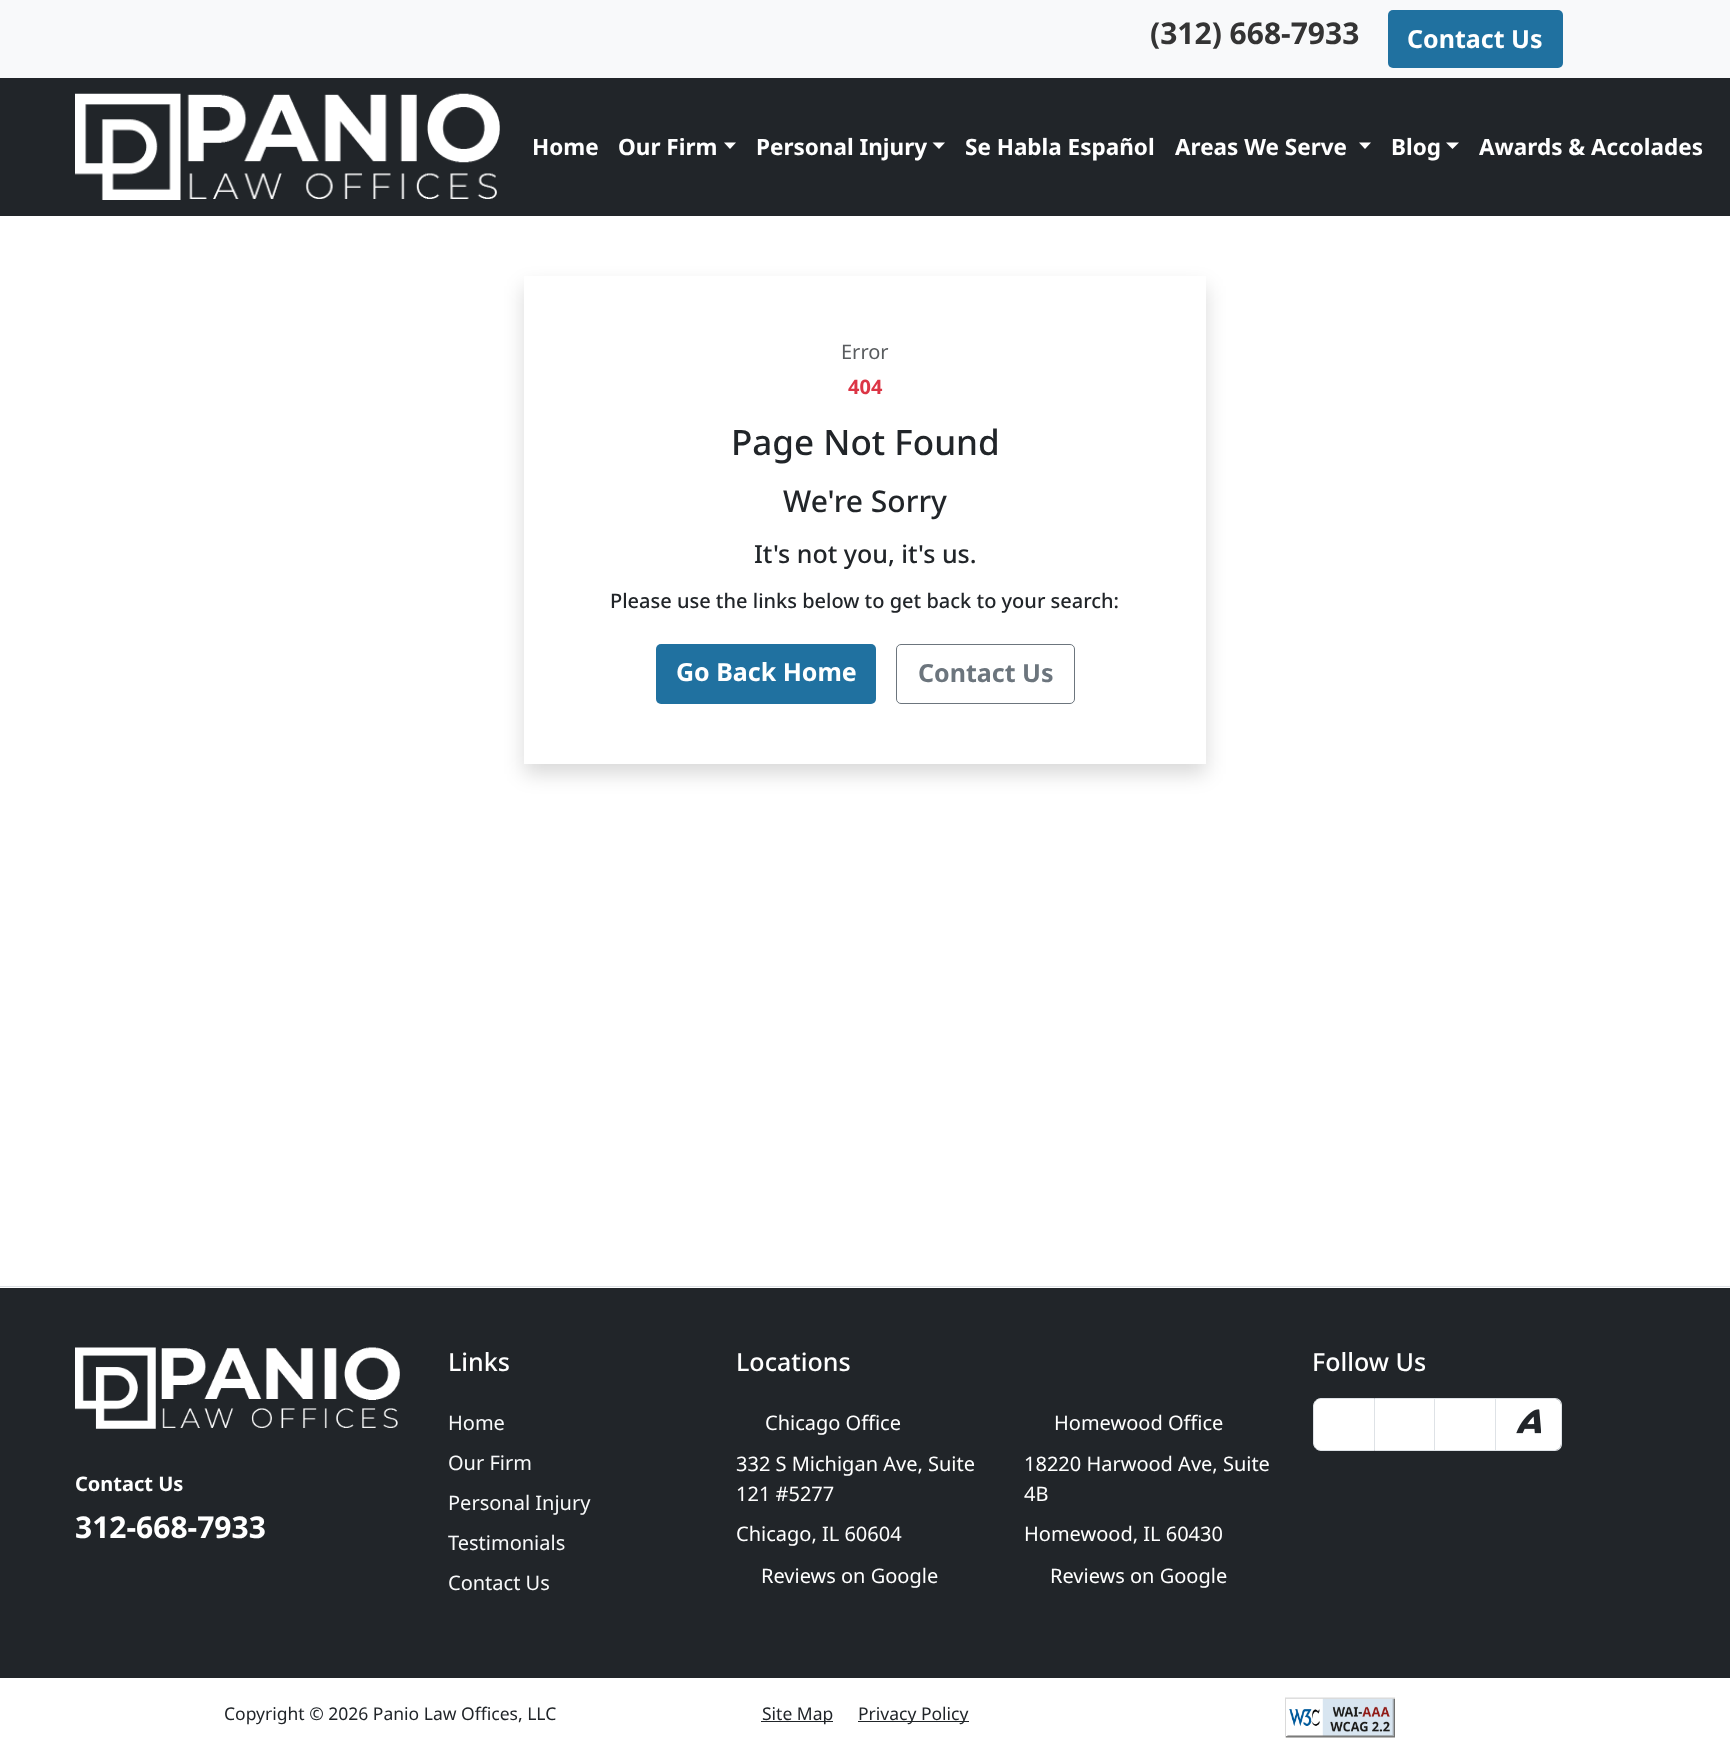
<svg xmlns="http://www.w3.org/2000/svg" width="1730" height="1757">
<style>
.a{font:bold 30px Noto Sans;fill:#343434}
.b{font:bold 25px Noto Sans;fill:#fff}
.c{font:bold 22.5px Noto Sans;fill:#fff}
.d{font:20px Noto Sans;fill:#595c5f}
.e{font:bold 20px Noto Sans;fill:#dc3545}
.f{font:500 35px Noto Sans;fill:#212529}
.g{font:500 30px Noto Sans;fill:#212529}
.h{font:500 25px Noto Sans;fill:#212529}
.i{font:500 20px Noto Sans;fill:#212529}
.j{font:bold 25px Noto Sans;fill:#6c757d}
.k{font:500 25px Noto Sans;fill:#fff}
.l{font:20px Noto Sans;fill:#f8f9fa}
.m{font:20px Noto Sans;fill:#fff}
.n{font:bold 20px Noto Sans;fill:#fff}
.o{font:bold 30px Noto Sans;fill:#fff}
.p{font:17.5px Noto Sans;fill:#212529}
</style>
<rect width="100%" height="100%" fill="#fff"/>
<path fill="#f8f9fa" d="M0 0h1730v78H0z"/>
<rect fill="#2071a0" x="1388" y="10" width="175" height="58" rx="5"/>
<path fill="#212529" d="M0 78h1730v138H0z"/>
<image href="1.png" x="75" y="93" width="425" height="107"/>
<path fill="#fff" d="M724 142.5h12l-6 6.5z"/>
<path fill="#fff" d="M932.5 142.5h12.5l-6 6.5z"/>
<path fill="#fff" d="M1359 142.5h12l-6 6.5z"/>
<path fill="#fff" d="M1446 142.5h13l-6.5 6.5z"/>
<path fill="#00000026" filter="blur(10px)" d="M524 286h682v488H524z"/>
<path fill="#fff" d="M524 276h682v488H524z"/>
<rect fill="#2071a0" x="656" y="644" width="220" height="60" rx="5"/>
<rect fill="none" stroke="#6c757d" x="896.5" y="644.5" width="178" height="59" rx="4.5"/>
<path fill="#dee2e6" d="M0 1286h1730v1H0z"/>
<path fill="#212529" d="M0 1288h1730v390H0z"/>
<path fill="#fff" stroke="#dee2e6" d="M1321 1398.5h53.5v52h-53.5c-4 0-7.5-3.5-7.5-7.5v-37c0-4 3.5-7.5 7.5-7.5z"/>
<path fill="#fff" d="M1375 1399h59v51H1375z"/>
<path fill="#dee2e6" d="M1375 1398h121v1H1375z"/>
<path fill="#dee2e6" d="M1434 1398h1v53H1434z"/>
<path fill="#dee2e6" d="M1375 1450h60v1H1375z"/>
<path fill="#fff" d="M1435 1399h60v51H1435z"/>
<path fill="#dee2e6" d="M1495 1398h1v53H1495z"/>
<path fill="#dee2e6" d="M1435 1450h61v1H1435z"/>
<path fill="#fff" d="M1496 1399h59c3.5 0 6 2.5 6 6v39c0 3.5-2.5 6-6 6h-59z"/>
<path fill="#dee2e6" fill-rule="evenodd" d="M1496 1398h59c4 0 7 3 7 7v39c0 4-3 7-7 7h-59zm0 1h59c3 0 6 3 6 6v39c0 3-3 6-6 6h-59z"/>
<image href="2.png" x="1516" y="1409" width="25" height="25"/>
<image href="3.png" x="75" y="1347" width="325" height="82"/>
<path fill="#212529" d="M761 1721h72v1H761z"/>
<path fill="#212529" d="M858 1721h111v1H858z"/>
<image href="4.png" x="1285" y="1697" width="110" height="41"/>
<text class="a" x="1150" y="44">(312) 668-7933</text>
<text class="b" x="1407" y="48">Contact Us</text>
<text class="c" x="532" y="155">Home</text>
<text class="c" x="618" y="155">Our Firm</text>
<text class="c" x="756" y="155">Personal Injury</text>
<text class="c" x="965" y="155">Se Habla Español</text>
<text class="c" x="1175" y="155">Areas We Serve</text>
<text class="c" x="1391" y="155">Blog</text>
<text class="c" x="1479" y="155">Awards &amp; Accolades</text>
<text class="d" x="841" y="359">Error</text>
<text class="e" x="848" y="394">404</text>
<text class="f" x="731" y="455">Page Not Found</text>
<text class="g" x="783" y="512">We're Sorry</text>
<text class="h" x="754" y="563">It's not you, it's us.</text>
<text class="i" x="610" y="608">Please use the links below to get back to your search:</text>
<text class="b" x="676" y="681">Go Back Home</text>
<text class="j" x="918" y="682">Contact Us</text>
<text class="k" x="448" y="1371">Links</text>
<text class="l" x="448" y="1430">Home</text>
<text class="l" x="448" y="1470">Our Firm</text>
<text class="l" x="448" y="1510">Personal Injury</text>
<text class="l" x="448" y="1550">Testimonials</text>
<text class="l" x="448" y="1590">Contact Us</text>
<text class="k" x="736" y="1371">Locations</text>
<text class="m" x="765" y="1430">Chicago Office</text>
<text class="m" x="736" y="1471">332 S Michigan Ave, Suite</text>
<text class="m" x="736" y="1501">121 #5277</text>
<text class="m" x="736" y="1541">Chicago, IL 60604</text>
<text class="m" x="761" y="1583">Reviews on Google</text>
<text class="m" x="1054" y="1430">Homewood Office</text>
<text class="m" x="1024" y="1471">18220 Harwood Ave, Suite</text>
<text class="m" x="1024" y="1501">4B</text>
<text class="m" x="1024" y="1541">Homewood, IL 60430</text>
<text class="m" x="1050" y="1583">Reviews on Google</text>
<text class="k" x="1312" y="1371">Follow Us</text>
<text class="n" x="75" y="1491">Contact Us</text>
<text class="o" x="75" y="1538">312-668-7933</text>
<text class="p" x="224" y="1720">Copyright © 2026 Panio Law Offices, LLC</text>
<text class="p" x="762" y="1720">Site Map</text>
<text class="p" x="858" y="1720">Privacy Policy</text>
</svg>
